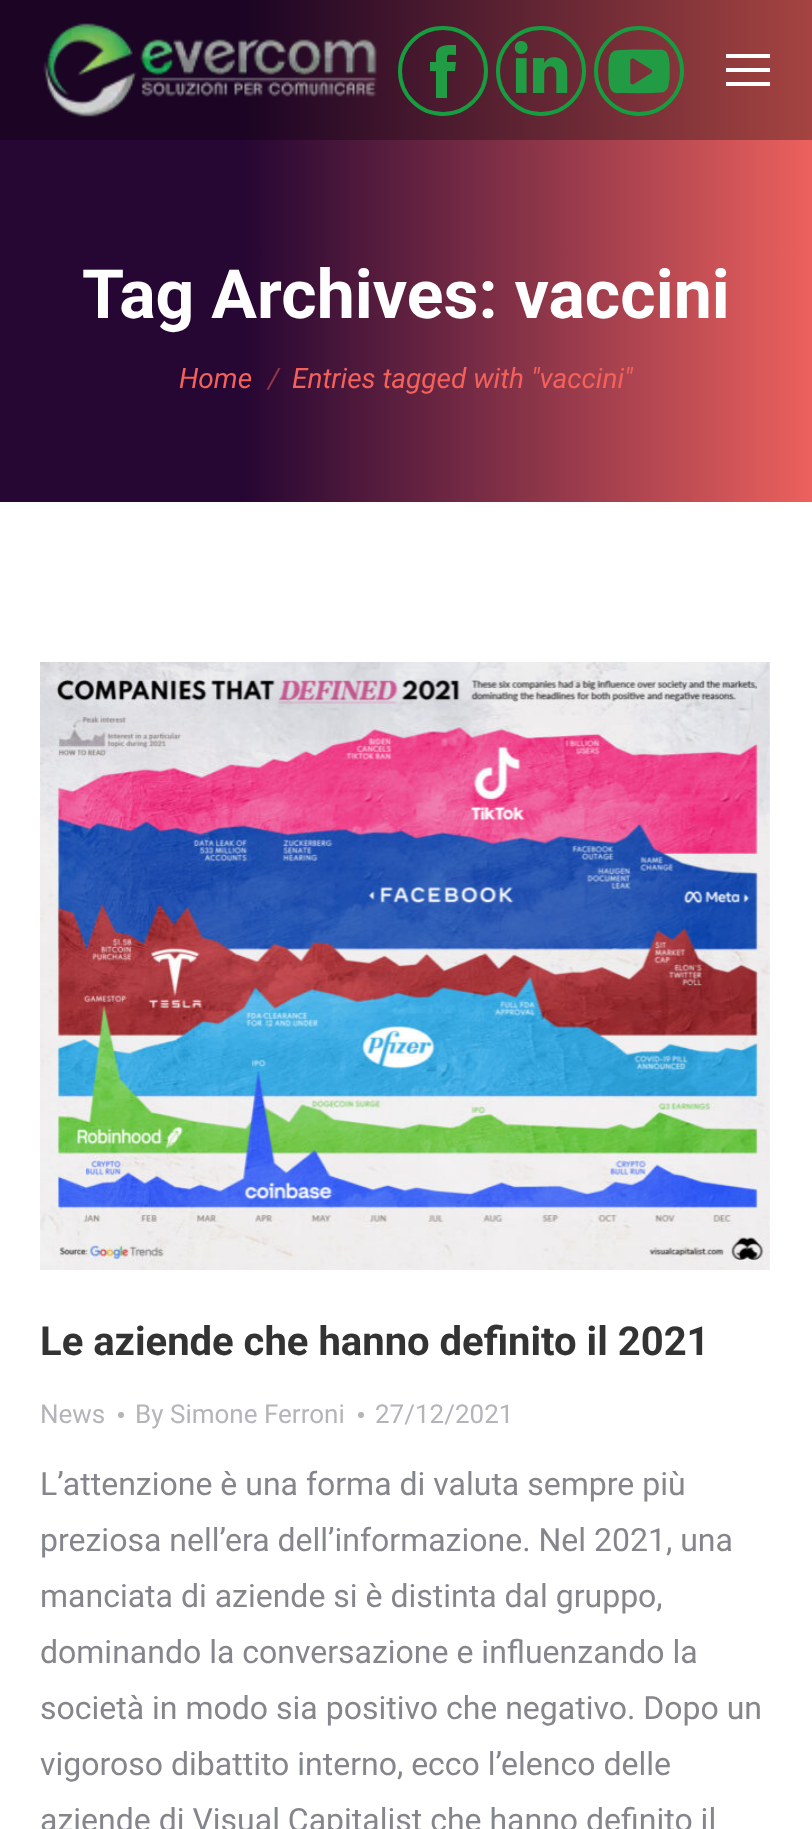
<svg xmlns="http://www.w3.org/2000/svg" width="812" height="1829">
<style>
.a{font:bold 68px Roboto;fill:#fff}
.b{font:italic 28px Roboto;fill:#f3615a}
.c{font:italic 28px Roboto;fill:#923648}
.d{font:bold 40px Roboto;fill:#333}
.e{font:26px Roboto;fill:#b4b5bb}
.f{font:32px Roboto;fill:#85868c}
</style>
<defs>
<linearGradient id="g1" gradientUnits="userSpaceOnUse" x1="0" y1="251" x2="812" y2="251"><stop offset="0.3" stop-color="#1b0424"/><stop offset="1" stop-color="#a54441"/></linearGradient>
<linearGradient id="g2" gradientUnits="userSpaceOnUse" x1="0" y1="251" x2="812" y2="251"><stop offset="0.3" stop-color="#260633"/><stop offset="1" stop-color="#ec615d"/></linearGradient>
</defs>
<rect width="100%" height="100%" fill="#fff"/>
<path fill="url(#g1)" d="M0 0h812v140H0z"/>
<image href="1.png" x="43" y="23" width="334" height="94"/>
<circle fill="none" stroke="#169d40" stroke-width="4" cx="443" cy="71" r="43"/>
<path fill="#229c44" d="M436 55c0-11 12-10 20-10v10c-9 0-9-2-9 7h9l-1 9h-8v27h-11v-27h-6v-9h6z"/>
<circle fill="none" stroke="#169d40" stroke-width="4" cx="541" cy="71" r="43"/>
<image href="2.png" x="514" y="41" width="54" height="52"/>
<circle fill="none" stroke="#169d40" stroke-width="4" cx="639" cy="71" r="43"/>
<image href="3.png" x="608" y="49" width="62" height="45"/>
<path fill="#fff" d="M726 54h44v4H726z"/>
<path fill="#fff" d="M726 68h44v4H726z"/>
<path fill="#fff" d="M726 82h44v4H726z"/>
<path fill="url(#g2)" d="M0 140h812v362H0z"/>
<image href="4.png" x="40" y="662" width="730" height="608"/>
<circle fill="#b4b5bb" cx="121" cy="1415" r="3"/>
<circle fill="#b4b5bb" cx="361" cy="1415" r="3"/>
<text class="a" x="82" y="318">Tag Archives: vaccini</text>
<text class="b" x="179" y="388">Home</text>
<text class="c" x="268" y="388">/</text>
<text class="b" x="292" y="388">Entries tagged with "vaccini"</text>
<text class="d" x="40" y="1355">Le aziende che hanno definito il 2021</text>
<text class="e" x="40" y="1423">News</text>
<text class="e" x="135" y="1423">By Simone Ferroni</text>
<text class="e" x="375" y="1423">27/12/2021</text>
<text class="f" x="40" y="1495">L’attenzione è una forma di valuta sempre più</text>
<text class="f" x="40" y="1551">preziosa nell’era dell’informazione. Nel 2021, una</text>
<text class="f" x="40" y="1607">manciata di aziende si è distinta dal gruppo,</text>
<text class="f" x="40" y="1663">dominando la conversazione e influenzando la</text>
<text class="f" x="40" y="1719">società in modo sia positivo che negativo. Dopo un</text>
<text class="f" x="40" y="1775">vigoroso dibattito interno, ecco l’elenco delle</text>
<text class="f" x="40" y="1831">aziende di Visual Capitalist che hanno definito il</text>
</svg>
